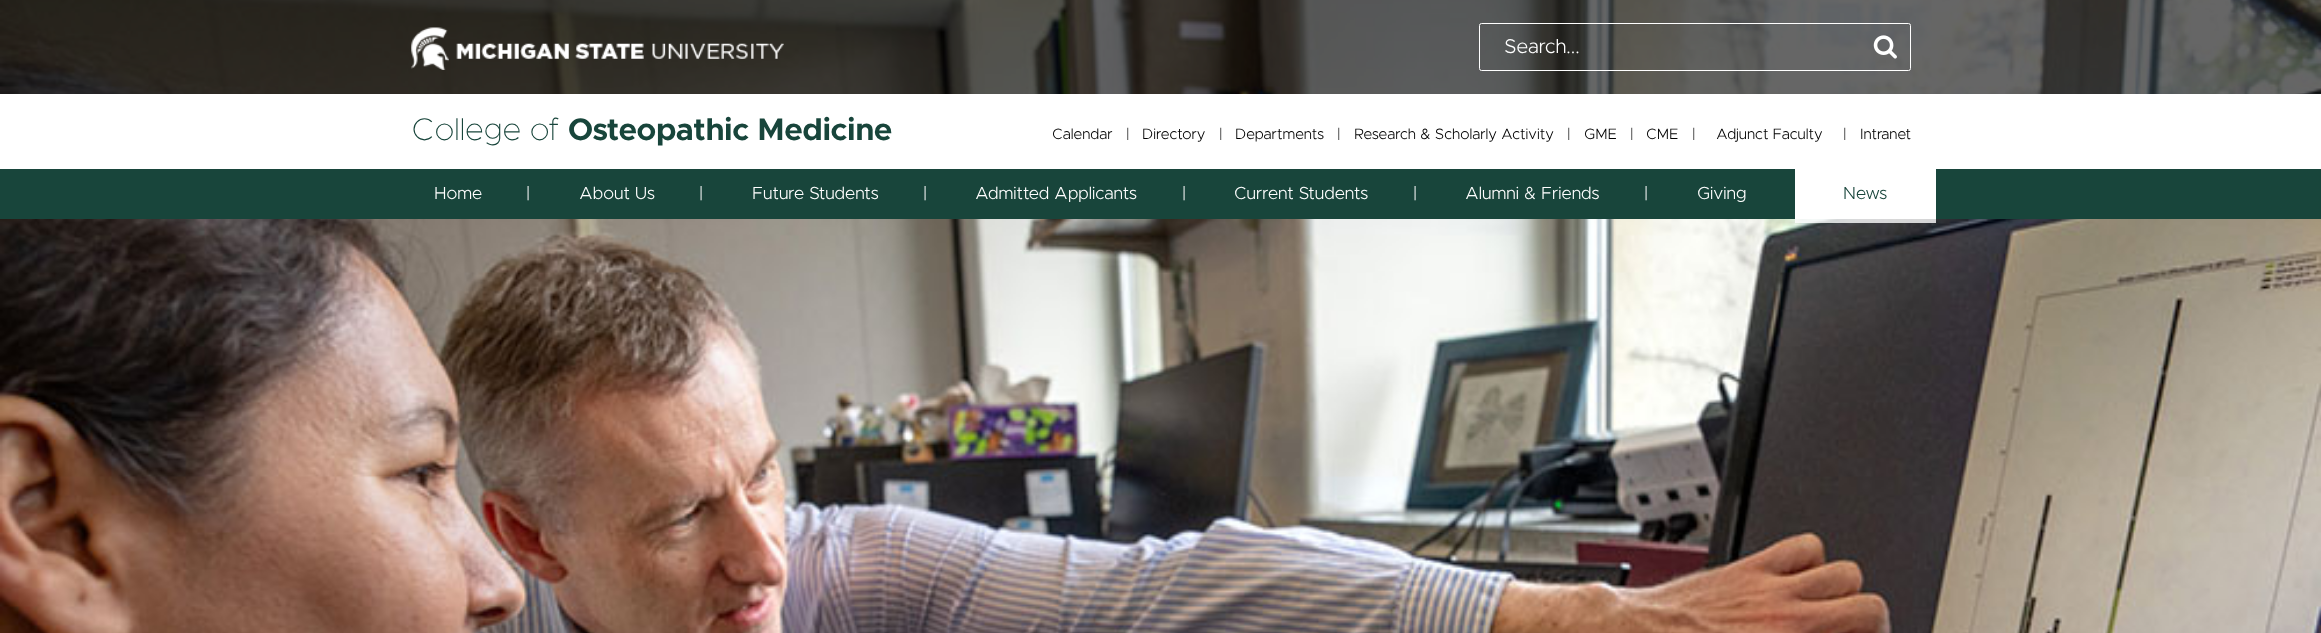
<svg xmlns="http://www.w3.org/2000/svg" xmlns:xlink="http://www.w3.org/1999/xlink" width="2321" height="633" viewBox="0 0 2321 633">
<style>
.cls-1{font:300 20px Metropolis;fill:#ffffff}
.cls-2{font:100 31.25px Metropolis;fill:#18453b}
.cls-3{font:bold 31.25px Metropolis;fill:#18453b}
.cls-4{font:300 15px Metropolis;fill:#000000}
.cls-5{font:300 15px Metropolis;fill:#202020}
.cls-6{font:300 17.5px Metropolis;fill:#ffffff}
.cls-7{font:300 17.5px Metropolis;fill:#18453b}
</style>
<rect width="100%" height="100%" fill="#ffffff"/>
<image xlink:href="image0.png" x="0" y="0" width="2321" height="633"/>
<rect fill="#000000" fill-opacity="0.6" x="0" y="0" width="2321" height="94"/>
<image xlink:href="image1.png" x="411" y="27" width="373" height="43"/>
<rect fill="none" stroke="#ffffff" x="1479.5" y="23.5" width="431" height="47" rx="2"/>
<image xlink:href="image2.png" x="1873" y="35" width="24" height="24"/>
<rect fill="#ffffff" x="0" y="94" width="2321" height="75"/>
<rect fill="#18453b" x="0" y="169" width="2321" height="50"/>
<rect fill="#ffffff" x="1795" y="169" width="141" height="50"/>
<rect fill="#ffffff" fill-opacity="0.8" x="1795" y="219" width="141" height="4"/>
<text class="cls-1" x="1504" y="53">Search...</text>
<text class="cls-2" x="411" y="140">College of</text>
<text class="cls-3" x="568" y="140">Osteopathic Medicine</text>
<text class="cls-4" x="1052" y="139">Calendar</text>
<text class="cls-5" x="1126" y="139">|</text>
<text class="cls-4" x="1142" y="139">Directory</text>
<text class="cls-5" x="1219" y="139">|</text>
<text class="cls-4" x="1235" y="139">Departments</text>
<text class="cls-5" x="1337" y="139">|</text>
<text class="cls-4" x="1354" y="139">Research &amp; Scholarly Activity</text>
<text class="cls-5" x="1567" y="139">|</text>
<text class="cls-4" x="1584" y="139">GME</text>
<text class="cls-5" x="1630" y="139">|</text>
<text class="cls-4" x="1646" y="139">CME</text>
<text class="cls-5" x="1692" y="139">|</text>
<text class="cls-4" x="1716" y="139">Adjunct Faculty</text>
<text class="cls-5" x="1843" y="139">|</text>
<text class="cls-4" x="1860" y="139">Intranet</text>
<text class="cls-6" x="434" y="199">Home</text>
<text class="cls-6" x="526" y="199">|</text>
<text class="cls-6" x="579" y="199">About Us</text>
<text class="cls-6" x="699" y="199">|</text>
<text class="cls-6" x="752" y="199">Future Students</text>
<text class="cls-6" x="923" y="199">|</text>
<text class="cls-6" x="975" y="199">Admitted Applicants</text>
<text class="cls-6" x="1182" y="199">|</text>
<text class="cls-6" x="1234" y="199">Current Students</text>
<text class="cls-6" x="1413" y="199">|</text>
<text class="cls-6" x="1465" y="199">Alumni &amp; Friends</text>
<text class="cls-6" x="1644" y="199">|</text>
<text class="cls-6" x="1697" y="199">Giving</text>
<text class="cls-7" x="1843" y="199">News</text>
</svg>
